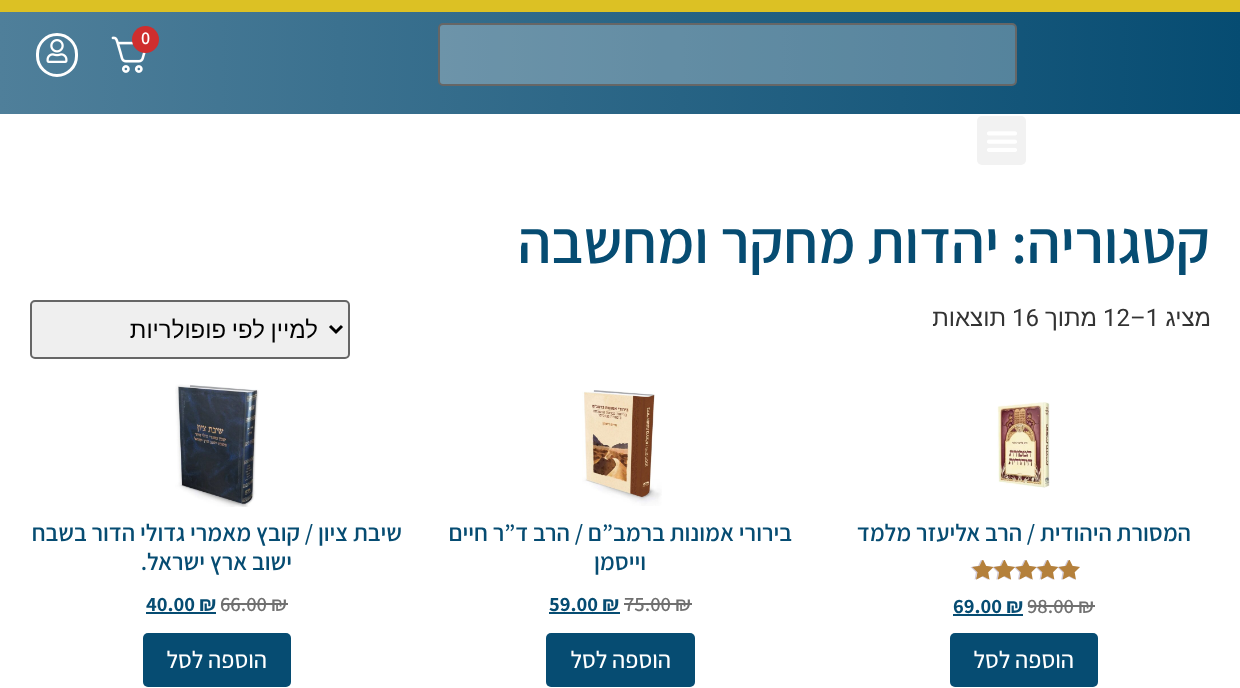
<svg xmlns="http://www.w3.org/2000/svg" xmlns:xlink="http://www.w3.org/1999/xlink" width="1240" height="688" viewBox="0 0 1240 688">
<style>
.cls-1{font:600 18px Assistant;fill:#ffffff}
.cls-2{font:600 60px Assistant;direction:rtl;fill:#064c72}
.cls-3{font:24px Liberation Sans;direction:rtl;fill:#333333}
.cls-4{font:24px Roboto;fill:#333333}
.cls-5{font:24px Liberation Sans;direction:rtl;fill:#000000}
.cls-6{font:600 24px Assistant;direction:rtl;fill:#064c72}
.cls-7{font:600 20.5px Assistant;fill:#707070}
.cls-8{font:bold 20.5px Assistant;fill:#064c72}
.cls-9{font:500 24px Assistant;direction:rtl;fill:#ffffff}
</style>
<defs>
<linearGradient id="g1" gradientUnits="userSpaceOnUse" x1="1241" y1="63" x2="0" y2="63"><stop offset="0" stop-color="#064c72"/><stop offset="1" stop-color="#4f7f9a"/></linearGradient>
<clipPath id="clip1"><rect x="80" y="314" width="238" height="31"/></clipPath>
</defs>
<rect width="100%" height="100%" fill="#ffffff"/>
<rect fill="#dcc124" x="0" y="0" width="1240" height="12"/>
<rect fill="url(#g1)" x="0" y="12" width="1240" height="102"/>
<rect fill="#efefef" fill-opacity="0.3" stroke="#666666" stroke-width="2" x="439" y="24" width="577" height="61" rx="4"/>
<image xlink:href="image0.png" x="111" y="36" width="35" height="37"/>
<circle fill="#cf2e2e" cx="145.5" cy="39.5" r="13.5"/>
<rect fill="none" stroke="#ffffff" stroke-width="3" x="37.5" y="34.5" width="39" height="41" rx="19.5"/>
<image xlink:href="image1.png" x="46" y="39" width="22" height="24"/>
<rect fill="#f2f2f2" x="977" y="116" width="49" height="49" rx="5"/>
<image xlink:href="image2.png" x="987" y="131" width="30" height="21"/>
<rect fill="#efefef" stroke="#666666" stroke-width="2" x="31" y="301" width="318" height="57" rx="4"/>
<path fill="none" stroke="#000000" stroke-width="3" d="M330 326L336 332L342 326"/>
<image xlink:href="image3.png" x="997" y="402" width="53" height="86"/>
<image xlink:href="image4.png" x="970" y="560" width="109" height="20"/>
<image xlink:href="image5.png" x="972" y="560" width="108" height="20"/>
<rect fill="#707070" x="1028" y="605" width="67" height="2"/>
<rect fill="#064c72" x="953" y="614" width="70" height="2"/>
<rect fill="#064c72" x="950" y="633" width="148" height="54" rx="5"/>
<image xlink:href="image6.png" x="582" y="390" width="80" height="116"/>
<rect fill="#707070" x="624" y="603" width="68" height="2"/>
<rect fill="#064c72" x="549" y="612" width="71" height="2"/>
<rect fill="#064c72" x="546" y="633" width="149" height="54" rx="5"/>
<image xlink:href="image7.png" x="175" y="384" width="84" height="123"/>
<rect fill="#707070" x="221" y="603" width="67" height="2"/>
<rect fill="#064c72" x="146" y="612" width="70" height="2"/>
<rect fill="#064c72" x="143" y="633" width="148" height="54" rx="5"/>
<text class="cls-1" x="141" y="44">0</text>
<text class="cls-2" x="1210" y="263">קטגוריה: יהדות מחקר ומחשבה</text>
<text class="cls-3" x="1211" y="326">מציג</text>
<text class="cls-4" x="1103" y="326">12–1</text>
<text class="cls-3" x="1097" y="326">מתוך</text>
<text class="cls-4" x="1012" y="326">16</text>
<text class="cls-3" x="1006" y="326">תוצאות</text>
<g clip-path="url(#clip1)">
<text class="cls-5" x="318" y="338" word-spacing="-1">למיין לפי פופולריות</text>
</g>
<text class="cls-6" x="1191" y="541">המסורת היהודית / הרב אליעזר מלמד</text>
<text class="cls-7" x="1027" y="613">98.00 ₪</text>
<text class="cls-8" x="953" y="613">69.00 ₪</text>
<text class="cls-9" x="1074" y="668">הוספה לסל</text>
<text class="cls-6" x="792" y="541">בירורי אמונות ברמב”ם / הרב ד”ר חיים</text>
<text class="cls-6" x="646" y="570">וייסמן</text>
<text class="cls-7" x="624" y="611">75.00 ₪</text>
<text class="cls-8" x="549" y="611">59.00 ₪</text>
<text class="cls-9" x="671" y="668">הוספה לסל</text>
<text class="cls-6" x="402" y="541">שיבת ציון / קובץ מאמרי גדולי הדור בשבח</text>
<text class="cls-6" x="292" y="570">ישוב ארץ ישראל.</text>
<text class="cls-7" x="220" y="611">66.00 ₪</text>
<text class="cls-8" x="146" y="611">40.00 ₪</text>
<text class="cls-9" x="267" y="668">הוספה לסל</text>
</svg>
